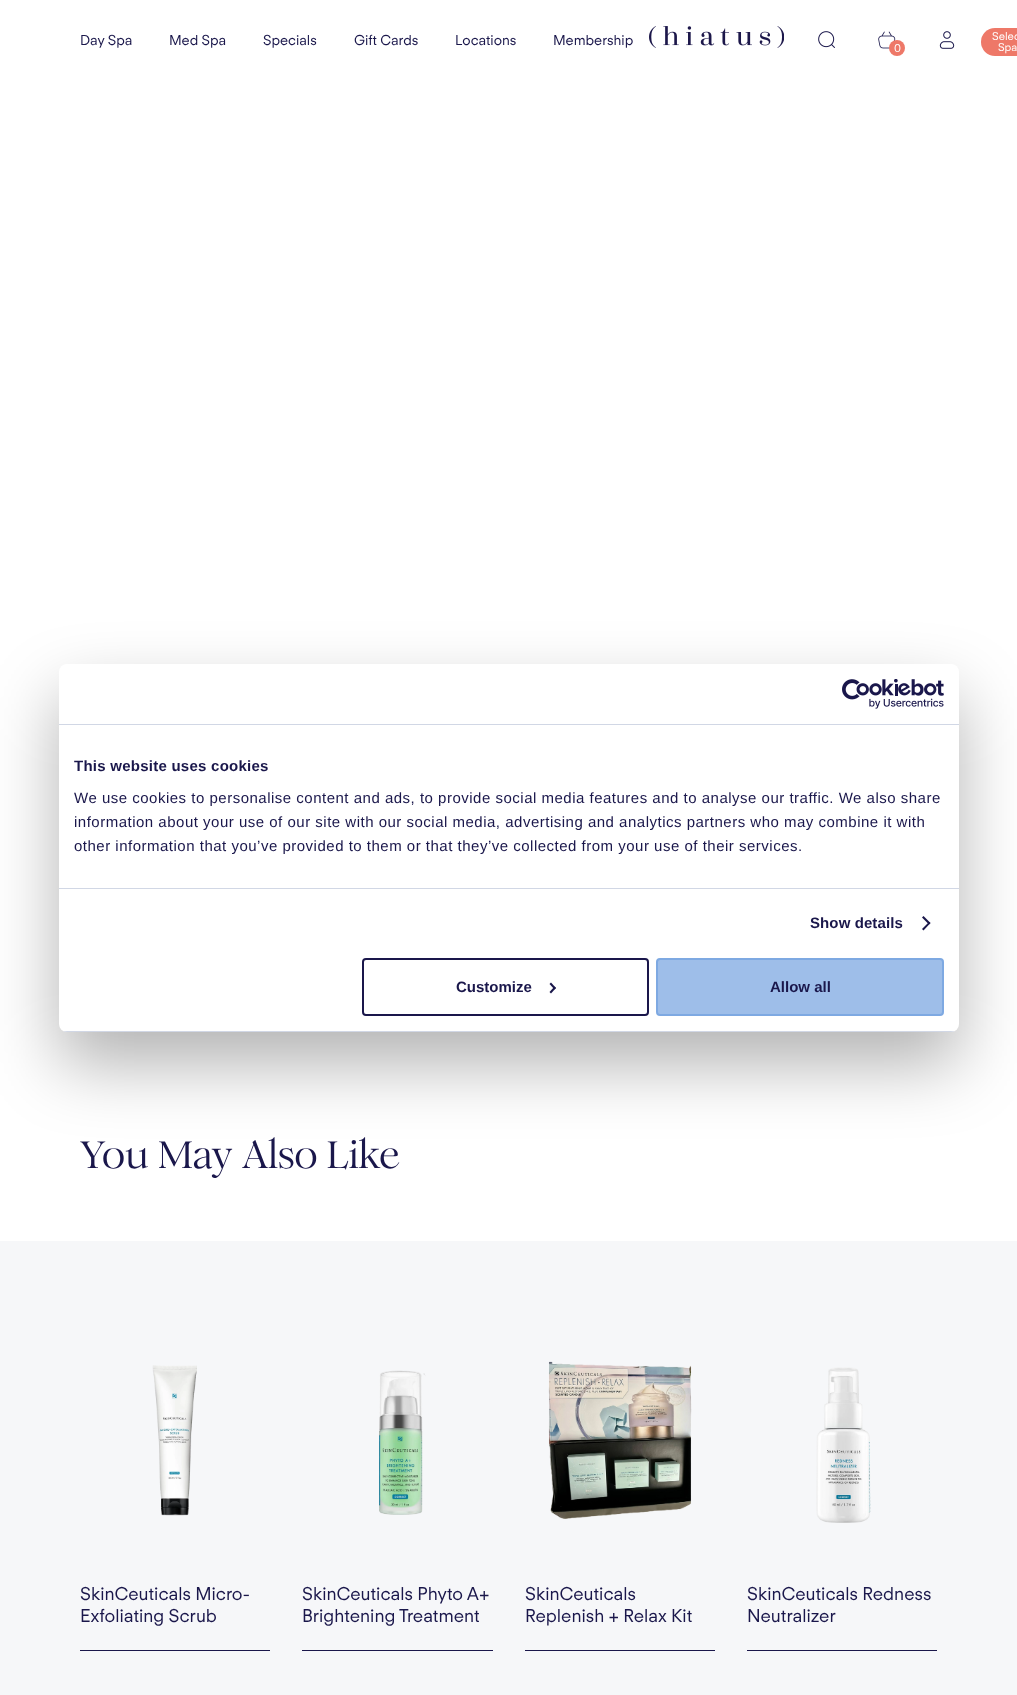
<svg xmlns="http://www.w3.org/2000/svg" xmlns:xlink="http://www.w3.org/1999/xlink" width="1017" height="1695" viewBox="0 0 1017 1695">
<style>
.cls-1{font:14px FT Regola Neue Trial;fill:#1a174b}
.cls-2{font:11px FT Regola Neue Trial;fill:#ffffff}
.cls-3{font:500 38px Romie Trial;fill:#1a174b}
.cls-4{font:18px FT Regola Neue Trial;fill:#1a174b}
.cls-5{font:bold 15px Liberation Sans;letter-spacing:0.25px;fill:#1a174b}
.cls-6{font:15px Liberation Sans;letter-spacing:0.5px;fill:#1a174b}
.cls-7{font:bold 15px Liberation Sans;letter-spacing:0.1px;fill:#1a174b}
.cls-8{font:bold 15px Liberation Sans;fill:#1a174b}
</style>
<defs>
<clipPath id="clip1"><rect x="59" y="664" width="900" height="368" rx="8"/></clipPath>
</defs>
<rect width="100%" height="100%" fill="#ffffff"/>
<image xlink:href="image0.png" x="649" y="26" width="135" height="22"/>
<image xlink:href="image1.png" x="818" y="31" width="17" height="17"/>
<image xlink:href="image2.png" x="878" y="31" width="18" height="18"/>
<circle fill="#ee7868" cx="897" cy="48" r="8"/>
<image xlink:href="image3.png" x="939" y="31" width="16" height="18"/>
<rect fill="#ee7868" x="981" y="28" width="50" height="28" rx="14"/>
<rect fill="#f6f7f9" x="0" y="1241" width="1017" height="454"/>
<rect fill="#1a174b" x="80" y="1650" width="190" height="1"/>
<image xlink:href="image4.png" x="152" y="1365" width="45" height="151"/>
<rect fill="#1a174b" x="302" y="1650" width="191" height="1"/>
<image xlink:href="image5.png" x="379" y="1370" width="47" height="145"/>
<rect fill="#1a174b" x="525" y="1650" width="190" height="1"/>
<image xlink:href="image6.png" x="548" y="1361" width="144" height="158"/>
<rect fill="#1a174b" x="747" y="1650" width="190" height="1"/>
<image xlink:href="image7.png" x="816" y="1367" width="55" height="156"/>
<rect fill="#000000" fill-opacity="0.3" filter="blur(34px)" x="59" y="696" width="900" height="368" rx="8"/>
<rect fill="#ffffff" x="59" y="664" width="900" height="368" rx="8"/>
<rect fill="#d1d7e5" x="59" y="724" width="900" height="1"/>
<image xlink:href="image8.png" x="842" y="679" width="102" height="30"/>
<rect fill="#d1d7e5" x="59" y="888" width="900" height="1"/>
<path fill="#1a174b" d="M923.5 916L930.5 923L929 924.5L922 917.5Z"/>
<path fill="#1a174b" d="M929 922L930.5 923L923.5 930.5L922 929Z"/>
<g clip-path="url(#clip1)">
<rect fill="#d1d7e5" x="59" y="1031" width="900" height="1"/>
</g>
<rect fill="none" stroke="#1a174b" stroke-width="2" x="363" y="959" width="285" height="56" rx="3"/>
<path fill="#1a174b" d="M551 982.5L556 988L554.5 989.5L549.5 984Z"/>
<path fill="#1a174b" d="M554.5 986.5L556 988L551 993.5L549.5 992Z"/>
<rect fill="#9ebee9" stroke="#7ea9e2" stroke-width="2" x="657" y="959" width="286" height="56" rx="3"/>
<text class="cls-1" x="80" y="45">Day Spa</text>
<text class="cls-1" x="169" y="45">Med Spa</text>
<text class="cls-1" x="263" y="45">Specials</text>
<text class="cls-1" x="354" y="45">Gift Cards</text>
<text class="cls-1" x="455" y="45">Locations</text>
<text class="cls-1" x="553" y="45">Membership</text>
<text class="cls-2" x="894" y="52">0</text>
<text class="cls-2" x="992" y="40">Selec</text>
<text class="cls-2" x="998" y="51">Spa</text>
<text class="cls-3" x="80" y="1168">You May Also Like</text>
<text class="cls-4"><tspan x="80" y="1600">SkinCeuticals Micro-</tspan><tspan x="80" y="1622">Exfoliating Scrub</tspan></text>
<text class="cls-4"><tspan x="302" y="1600">SkinCeuticals Phyto A+</tspan><tspan x="302" y="1622">Brightening Treatment</tspan></text>
<text class="cls-4"><tspan x="525" y="1600">SkinCeuticals</tspan><tspan x="525" y="1622">Replenish + Relax Kit</tspan></text>
<text class="cls-4"><tspan x="747" y="1600">SkinCeuticals Redness</tspan><tspan x="747" y="1622">Neutralizer</tspan></text>
<text class="cls-5" x="74" y="771">This website uses cookies</text>
<text class="cls-6"><tspan x="74" y="803">We use cookies to personalise content and ads, to provide social media features and to analyse our traffic. We also share</tspan><tspan x="74" y="827">information about your use of our site with our social media, advertising and analytics partners who may combine it with</tspan><tspan x="74" y="851">other information that you’ve provided to them or that they’ve collected from your use of their services.</tspan></text>
<text class="cls-7" x="810" y="928">Show details</text>
<text class="cls-8" x="456" y="992">Customize</text>
<text class="cls-8" x="770" y="992">Allow all</text>
</svg>
